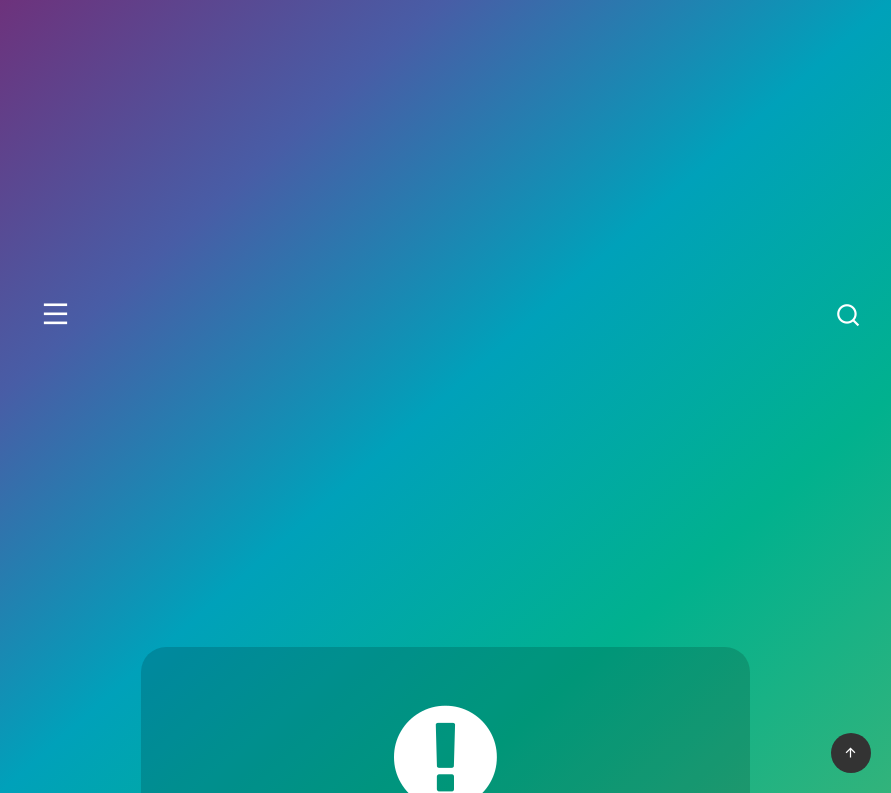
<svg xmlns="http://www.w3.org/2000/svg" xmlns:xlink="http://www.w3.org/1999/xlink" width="891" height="793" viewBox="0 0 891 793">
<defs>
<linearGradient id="g1" gradientUnits="userSpaceOnUse" x1="52" y1="-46" x2="839" y2="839"><stop offset="0" stop-color="#6d327c"/><stop offset="0.25" stop-color="#485da6"/><stop offset="0.5" stop-color="#00a1ba"/><stop offset="0.75" stop-color="#01b18e"/><stop offset="1" stop-color="#32b37b"/></linearGradient>
</defs>
<rect width="100%" height="100%" fill="#ffffff"/>
<rect fill="url(#g1)" x="0" y="0" width="891" height="793"/>
<image xlink:href="image0.png" x="43" y="303" width="25" height="22"/>
<image xlink:href="image1.png" x="837" y="304" width="23" height="23"/>
<rect fill="#000000" fill-opacity="0.15" x="141" y="647" width="609" height="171" rx="25"/>
<image xlink:href="image2.png" x="394" y="705" width="103" height="88"/>
<circle fill="#333333" cx="851" cy="753" r="20"/>
<image xlink:href="image3.png" x="845" y="747" width="11" height="11"/>
</svg>
